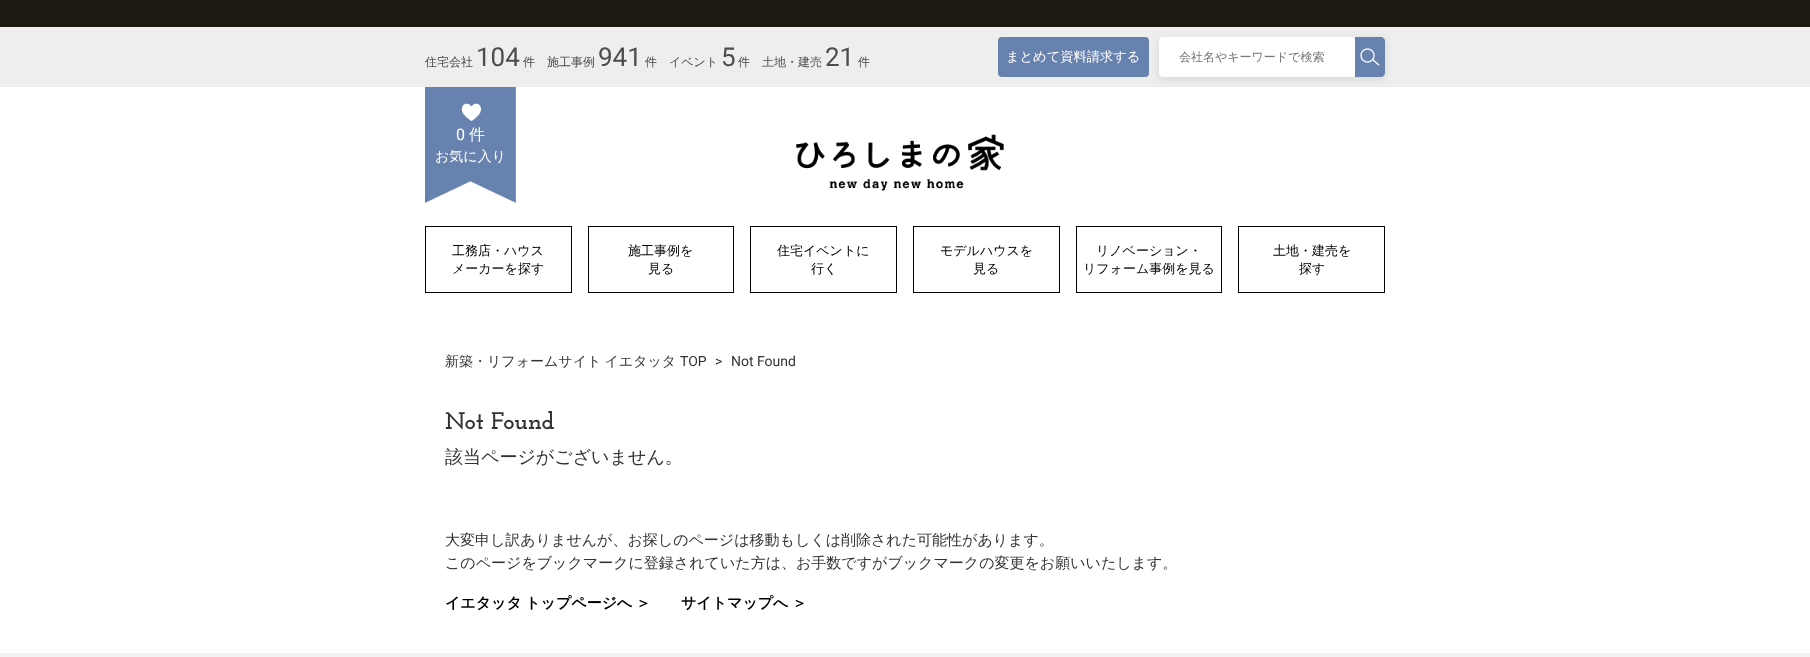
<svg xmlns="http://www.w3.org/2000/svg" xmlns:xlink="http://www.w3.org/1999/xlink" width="1810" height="657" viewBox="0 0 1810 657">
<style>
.cls-1{font:500 12px WenQuanYi Zen Hei;fill:#4d4d4d}
.cls-2{font:26px Roboto;fill:#4d4d4d}
.cls-3{font:500 13.25px WenQuanYi Zen Hei;fill:#ffffff}
.cls-4{font:500 12px WenQuanYi Zen Hei;fill:#757575}
.cls-5{font:16px Roboto;fill:#ffffff}
.cls-6{font:500 16px WenQuanYi Zen Hei;fill:#ffffff}
.cls-7{font:500 14px WenQuanYi Zen Hei;fill:#ffffff}
.cls-8{font:500 13px WenQuanYi Zen Hei;fill:#000000}
.cls-9{font:500 14px WenQuanYi Zen Hei;fill:#333333}
.cls-10{font:14px Roboto;fill:#333333}
.cls-11{font:bold 24px Josefin Slab;fill:#333333}
.cls-12{font:500 18px WenQuanYi Zen Hei;fill:#333333}
.cls-13{font:500 15px WenQuanYi Zen Hei;fill:#333333}
.cls-14{font:bold 15px WenQuanYi Zen Hei;fill:#000000}
</style>
<rect width="100%" height="100%" fill="#ffffff"/>
<rect fill="#1c1a10" x="0" y="0" width="1810" height="27"/>
<rect fill="#eeeeee" x="0" y="27" width="1810" height="60"/>
<rect fill="#6782ae" x="998" y="37" width="151" height="40" rx="4"/>
<rect fill="#000000" fill-opacity="0.1" filter="blur(4px)" x="1159" y="39" width="226" height="40" rx="4"/>
<path fill="#ffffff" d="M1163 37H1355V77H1163C1161 77 1159 75 1159 73V41C1159 39 1161 37 1163 37Z"/>
<path fill="#6782ae" d="M1355 37H1381C1383 37 1385 39 1385 41V73C1385 75 1383 77 1381 77H1355Z"/>
<image xlink:href="image0.png" x="1360" y="48" width="20" height="18"/>
<image xlink:href="image1.png" x="425" y="87" width="91" height="116"/>
<image xlink:href="image2.png" x="461" y="103" width="20" height="18"/>
<image xlink:href="image3.png" x="796" y="134" width="208" height="57"/>
<rect fill="none" stroke="#000000" x="425.5" y="226.5" width="146" height="66"/>
<rect fill="none" stroke="#000000" x="588.5" y="226.5" width="145" height="66"/>
<rect fill="none" stroke="#000000" x="750.5" y="226.5" width="146" height="66"/>
<rect fill="none" stroke="#000000" x="913.5" y="226.5" width="146" height="66"/>
<rect fill="none" stroke="#000000" x="1076.5" y="226.5" width="145" height="66"/>
<rect fill="none" stroke="#000000" x="1238.5" y="226.5" width="146" height="66"/>
<rect fill="#f2f2f2" x="0" y="653" width="1810" height="4"/>
<text class="cls-1" x="425" y="66">住宅会社</text>
<text class="cls-2" x="476" y="66">104</text>
<text class="cls-1" x="523" y="66">件</text>
<text class="cls-1" x="547" y="66">施工事例</text>
<text class="cls-2" x="598" y="66">941</text>
<text class="cls-1" x="645" y="66">件</text>
<text class="cls-1" x="669" y="66">イベント</text>
<text class="cls-2" x="721" y="66">5</text>
<text class="cls-1" x="738" y="66">件</text>
<text class="cls-1" x="762" y="66">土地・建売</text>
<text class="cls-2" x="825" y="66">21</text>
<text class="cls-1" x="858" y="66">件</text>
<text class="cls-3" x="1006" y="61">まとめて資料請求する</text>
<text class="cls-4" x="1179" y="61">会社名やキーワードで検索</text>
<text class="cls-5" x="456" y="140">0</text>
<text class="cls-6" x="469" y="140">件</text>
<text class="cls-7" x="435" y="161">お気に入り</text>
<text class="cls-8"><tspan x="452" y="255">工務店・ハウス</tspan><tspan x="452" y="273">メーカーを探す</tspan></text>
<text class="cls-8" x="628" y="255">施工事例を</text>
<text class="cls-8" x="648" y="273">見る</text>
<text class="cls-8" x="777" y="255">住宅イベントに</text>
<text class="cls-8" x="811" y="273">行く</text>
<text class="cls-8" x="940" y="255">モデルハウスを</text>
<text class="cls-8" x="973" y="273">見る</text>
<text class="cls-8" x="1096" y="255">リノベーション・</text>
<text class="cls-8" x="1083" y="273">リフォーム事例を見る</text>
<text class="cls-8" x="1273" y="255">土地・建売を</text>
<text class="cls-8" x="1299" y="273">探す</text>
<text class="cls-9" x="445" y="366" word-spacing="-1">新築・リフォームサイト イエタッタ</text>
<text class="cls-10" x="680" y="366">TOP</text>
<text class="cls-10" x="715" y="366">&gt;</text>
<text class="cls-10" x="731" y="366">Not Found</text>
<text class="cls-11" x="445" y="429">Not Found</text>
<text class="cls-12" x="445" y="463">該当ページがございません。</text>
<text class="cls-13"><tspan x="445" y="545">大変申し訳ありませんが、お探しのページは移動もしくは削除された可能性があります。</tspan><tspan x="445" y="568">このページをブックマークに登録されていた方は、お手数ですがブックマークの変更をお願いいたします。</tspan></text>
<text class="cls-14" x="445" y="608" word-spacing="-1">イエタッタ トップページへ ＞</text>
<text class="cls-14" x="681" y="608" word-spacing="-1">サイトマップへ ＞</text>
</svg>
